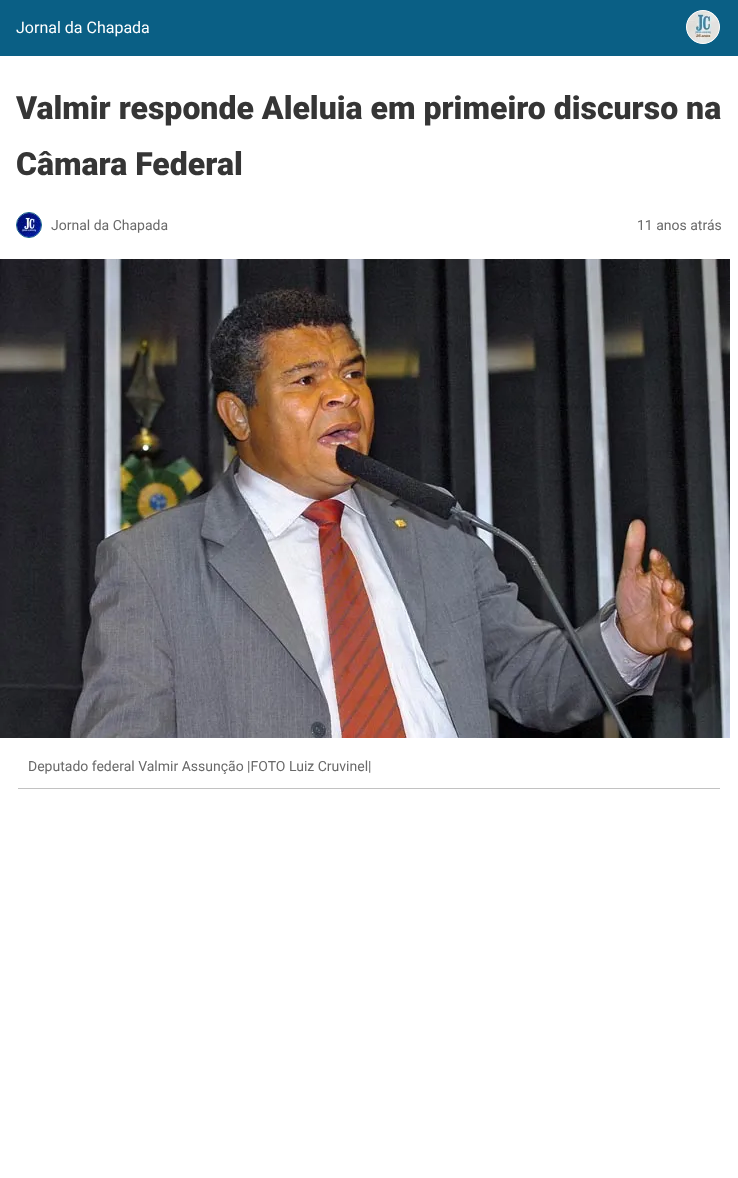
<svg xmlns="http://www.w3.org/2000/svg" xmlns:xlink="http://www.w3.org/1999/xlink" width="738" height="1178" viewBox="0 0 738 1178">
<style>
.cls-1{font:16px Roboto;fill:#ffffff}
.cls-2{font:900 32px Roboto;fill:#353535}
.cls-3{font:14px Roboto;fill:#696969}
</style>
<rect width="100%" height="100%" fill="#ffffff"/>
<rect fill="#0a5f85" x="0" y="0" width="738" height="56"/>
<circle fill="#ffffff" stroke="#ffffff" cx="703" cy="27" r="16.5"/>
<image xlink:href="image0.png" x="687" y="11" width="32" height="32"/>
<circle fill="none" stroke="#0a5f85" cx="29" cy="225" r="12.5"/>
<image xlink:href="image1.png" x="17" y="213" width="24" height="24"/>
<image xlink:href="image2.png" x="0" y="259" width="730" height="479"/>
<rect fill="#c2c2c2" x="18" y="788" width="702" height="1"/>
<text class="cls-1" x="16" y="33">Jornal da Chapada</text>
<text class="cls-2"><tspan x="16" y="119">Valmir responde Aleluia em primeiro discurso na</tspan><tspan x="16" y="175">Câmara Federal</tspan></text>
<text class="cls-3" x="51" y="230">Jornal da Chapada</text>
<text class="cls-3" x="637" y="230">11 anos atrás</text>
<text class="cls-3" x="28" y="771">Deputado federal Valmir Assunção |FOTO Luiz Cruvinel|</text>
</svg>
